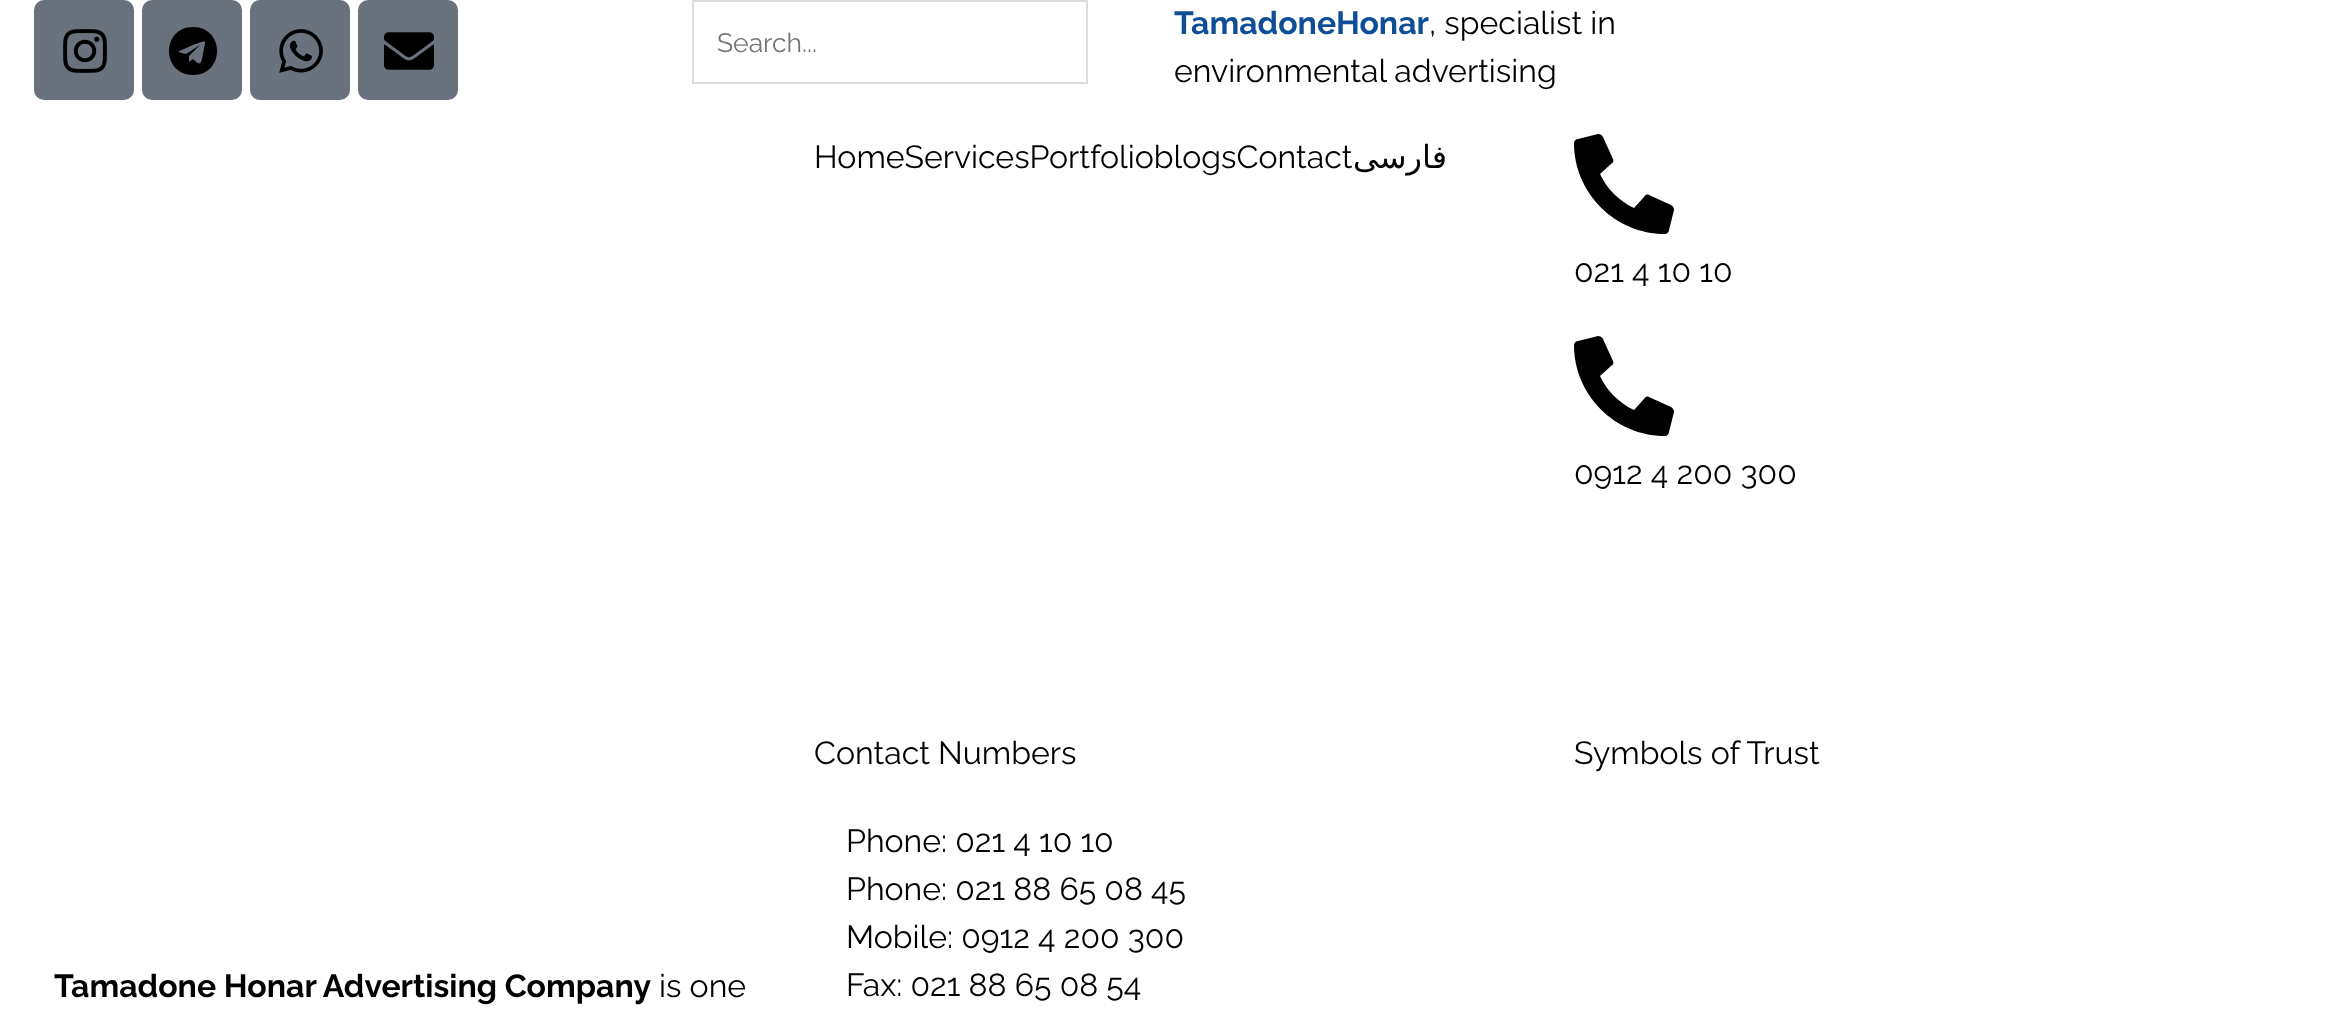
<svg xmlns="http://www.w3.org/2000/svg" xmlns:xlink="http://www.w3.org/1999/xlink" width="2347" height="1011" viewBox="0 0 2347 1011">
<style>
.cls-1{font:26.5px Raleway;fill:#757575}
.cls-2{font:bold 32px Raleway;fill:#0d4e97}
.cls-3{font:32px Raleway;fill:#000000}
.cls-4{font:32px DejaVu Sans;direction:rtl;fill:#000000}
.cls-5{font:bold 32px Raleway;fill:#000000}
</style>
<rect width="100%" height="100%" fill="#ffffff"/>
<rect fill="#69727d" x="34" y="0" width="100" height="100" rx="10"/>
<image xlink:href="image0.png" x="63" y="29" width="44" height="44"/>
<rect fill="#69727d" x="142" y="0" width="100" height="100" rx="10"/>
<path fill="#000000" d="M193 27C161 27 161 75 193 75C225 75 225 27 193 27ZM205 43L202 59C200 67 198 63 193 59L189 62V56L200 45L186 54C180 52 174 53 184 49L195 44C197 44 206 39 205 43Z"/>
<rect fill="#69727d" x="250" y="0" width="100" height="100" rx="10"/>
<image xlink:href="image1.png" x="279" y="29" width="44" height="44"/>
<rect fill="#69727d" x="358" y="0" width="100" height="100" rx="10"/>
<image xlink:href="image2.png" x="384" y="32" width="50" height="38"/>
<rect fill="none" stroke="#dcdcdc" stroke-width="2" x="693" y="1" width="394" height="82"/>
<path fill="#000000" d="M1671 205L1649 195C1647 194 1645 195 1644 197L1634 208C1619 201 1607 189 1600 174L1611 164C1613 163 1614 161 1613 159L1603 137C1602 135 1600 134 1598 134L1578 139C1576 139 1574 141 1574 143C1574 193 1615 234 1665 234C1667 234 1669 232 1669 230L1674 210C1674 208 1673 206 1671 205Z"/>
<path fill="#000000" d="M1671 407L1649 397C1647 396 1645 397 1644 399L1634 410C1619 403 1607 391 1600 376L1611 366C1613 365 1614 363 1613 361L1603 339C1602 337 1600 336 1598 336L1578 341C1576 341 1574 343 1574 345C1574 395 1615 436 1665 436C1667 436 1669 434 1669 432L1674 412C1674 410 1673 408 1671 407Z"/>
<text class="cls-1" x="717" y="52">Search...</text>
<text class="cls-2" x="1174" y="34">TamadoneHonar</text>
<text class="cls-3" x="1429" y="34">, specialist in</text>
<text class="cls-3" x="1174" y="82">environmental advertising</text>
<text class="cls-3" x="814" y="168">HomeServicesPortfolioblogsContact</text>
<text class="cls-4" x="1447" y="168">فارسی</text>
<text class="cls-3" x="1574" y="282">021 4 10 10</text>
<text class="cls-3" x="1574" y="484">0912 4 200 300</text>
<text class="cls-3" x="814" y="764">Contact Numbers</text>
<text class="cls-3"><tspan x="846" y="852">Phone: 021 4 10 10</tspan><tspan x="846" y="900">Phone: 021 88 65 08 45</tspan><tspan x="846" y="948">Mobile: 0912 4 200 300</tspan><tspan x="846" y="996">Fax: 021 88 65 08 54</tspan></text>
<text class="cls-3" x="1574" y="764">Symbols of Trust</text>
<text class="cls-5" x="54" y="997">Tamadone Honar Advertising Company</text>
<text class="cls-3" x="659" y="997">is one</text>
</svg>
